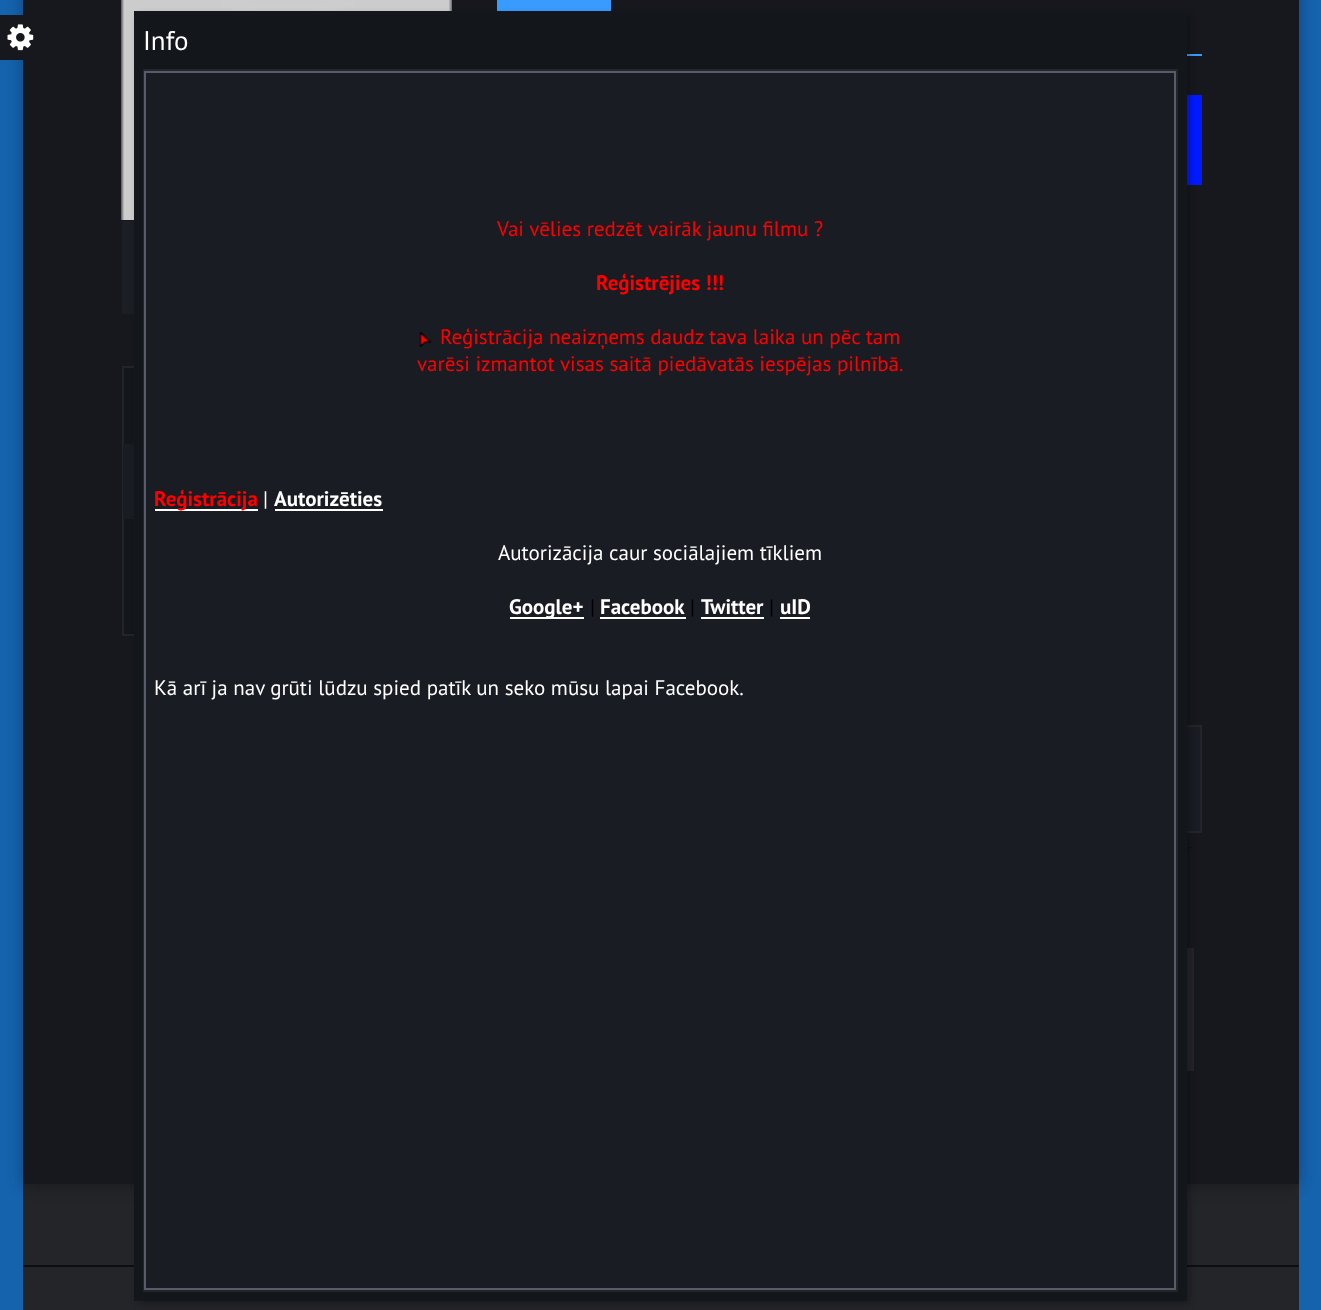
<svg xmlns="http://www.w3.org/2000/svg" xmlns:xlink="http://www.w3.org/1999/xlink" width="1321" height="1310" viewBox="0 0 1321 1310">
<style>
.cls-1{font:27px PT Sans;fill:#ffffff}
.cls-2{font:21px PT Sans;fill:#ff0000}
.cls-3{font:bold 21px PT Sans;fill:#ff0000}
.cls-4{font:21px PT Sans;fill:#ffffff}
.cls-5{font:bold 21px PT Sans;fill:#ffffff}
.cls-6{font:21px PT Sans;fill:#000000}
</style>
<rect width="100%" height="100%" fill="#242529"/>
<rect fill="none" stroke="#1562ad" stroke-width="23" x="11.5" y="-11.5" width="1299" height="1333"/>
<rect fill="#000000" fill-opacity="0.3" filter="blur(7.5px)" x="23" y="-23" width="1276" height="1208"/>
<rect fill="#16181d" x="23" y="0" width="1276" height="1184"/>
<image xlink:href="image0.png" x="121" y="0" width="331" height="220"/>
<rect fill="#1c1e25" x="122" y="221" width="12" height="93"/>
<rect fill="#13161a" x="124" y="368" width="10" height="266"/>
<rect fill="none" stroke="#242529" stroke-width="2" x="123" y="367" width="328" height="268"/>
<rect fill="#191c22" x="123" y="444" width="11" height="75"/>
<rect fill="#399bfe" x="1187" y="54" width="15" height="2"/>
<rect fill="#399bfe" x="497" y="0" width="114" height="11"/>
<rect fill="#0019ff" x="1187" y="95" width="15" height="90"/>
<rect fill="#191c22" x="1187" y="727" width="13" height="104"/>
<rect fill="none" stroke="#242529" stroke-width="2" x="498" y="726" width="703" height="106"/>
<image xlink:href="image1.png" x="1187" y="847" width="6" height="2"/>
<rect fill="#242529" x="1187" y="948" width="7" height="123"/>
<path fill="#16181d" d="M0 15H40C43 15 45 17 45 20V55C45 58 43 60 40 60H0Z"/>
<image xlink:href="image2.png" x="7" y="24" width="27" height="27"/>
<rect fill="#0d0e11" x="23" y="1265" width="1276" height="2"/>
<rect fill="#000000" fill-opacity="0.25" filter="blur(3px)" x="137" y="14" width="1053" height="1290" rx="4"/>
<rect fill="#13161a" x="134" y="11" width="1053" height="1290"/>
<rect fill="#191c22" x="146" y="73" width="1028" height="1215"/>
<rect fill="none" stroke="#242529" stroke-width="2" x="144" y="70" width="1033" height="1221"/>
<rect fill="none" stroke="#575b6b" stroke-width="2" x="145" y="72" width="1030" height="1217"/>
<image xlink:href="image3.png" x="419" y="332" width="13" height="15"/>
<rect fill="#ffffff" x="155" y="509" width="103" height="2"/>
<rect fill="#ffffff" x="275" y="509" width="108" height="2"/>
<rect fill="#ffffff" x="510" y="617" width="74" height="2"/>
<rect fill="#ffffff" x="600" y="617" width="86" height="2"/>
<rect fill="#ffffff" x="701" y="617" width="63" height="2"/>
<rect fill="#ffffff" x="780" y="617" width="30" height="2"/>
<text class="cls-1" x="143" y="50">Info</text>
<text class="cls-2" x="497" y="236">Vai vēlies redzēt vairāk jaunu filmu ?</text>
<text class="cls-3" x="596" y="290">Reģistrējies !!!</text>
<text class="cls-2" x="440" y="344">Reģistrācija neaizņems daudz tava laika un pēc tam</text>
<text class="cls-2" x="417" y="371">varēsi izmantot visas saitā piedāvatās iespējas pilnībā.</text>
<text class="cls-3" x="154" y="506">Reģistrācija</text>
<text class="cls-4" x="263" y="506">|</text>
<text class="cls-5" x="274" y="506">Autorizēties</text>
<text class="cls-4" x="498" y="560">Autorizācija caur sociālajiem tīkliem</text>
<text class="cls-5" x="509" y="614">Google+</text>
<text class="cls-6" x="590" y="614">|</text>
<text class="cls-5" x="600" y="614">Facebook</text>
<text class="cls-6" x="690" y="614">|</text>
<text class="cls-5" x="701" y="614">Twitter</text>
<text class="cls-6" x="769" y="614">|</text>
<text class="cls-5" x="780" y="614">uID</text>
<text class="cls-4" x="154" y="695">Kā arī ja nav grūti lūdzu spied patīk un seko mūsu lapai Facebook.</text>
</svg>
